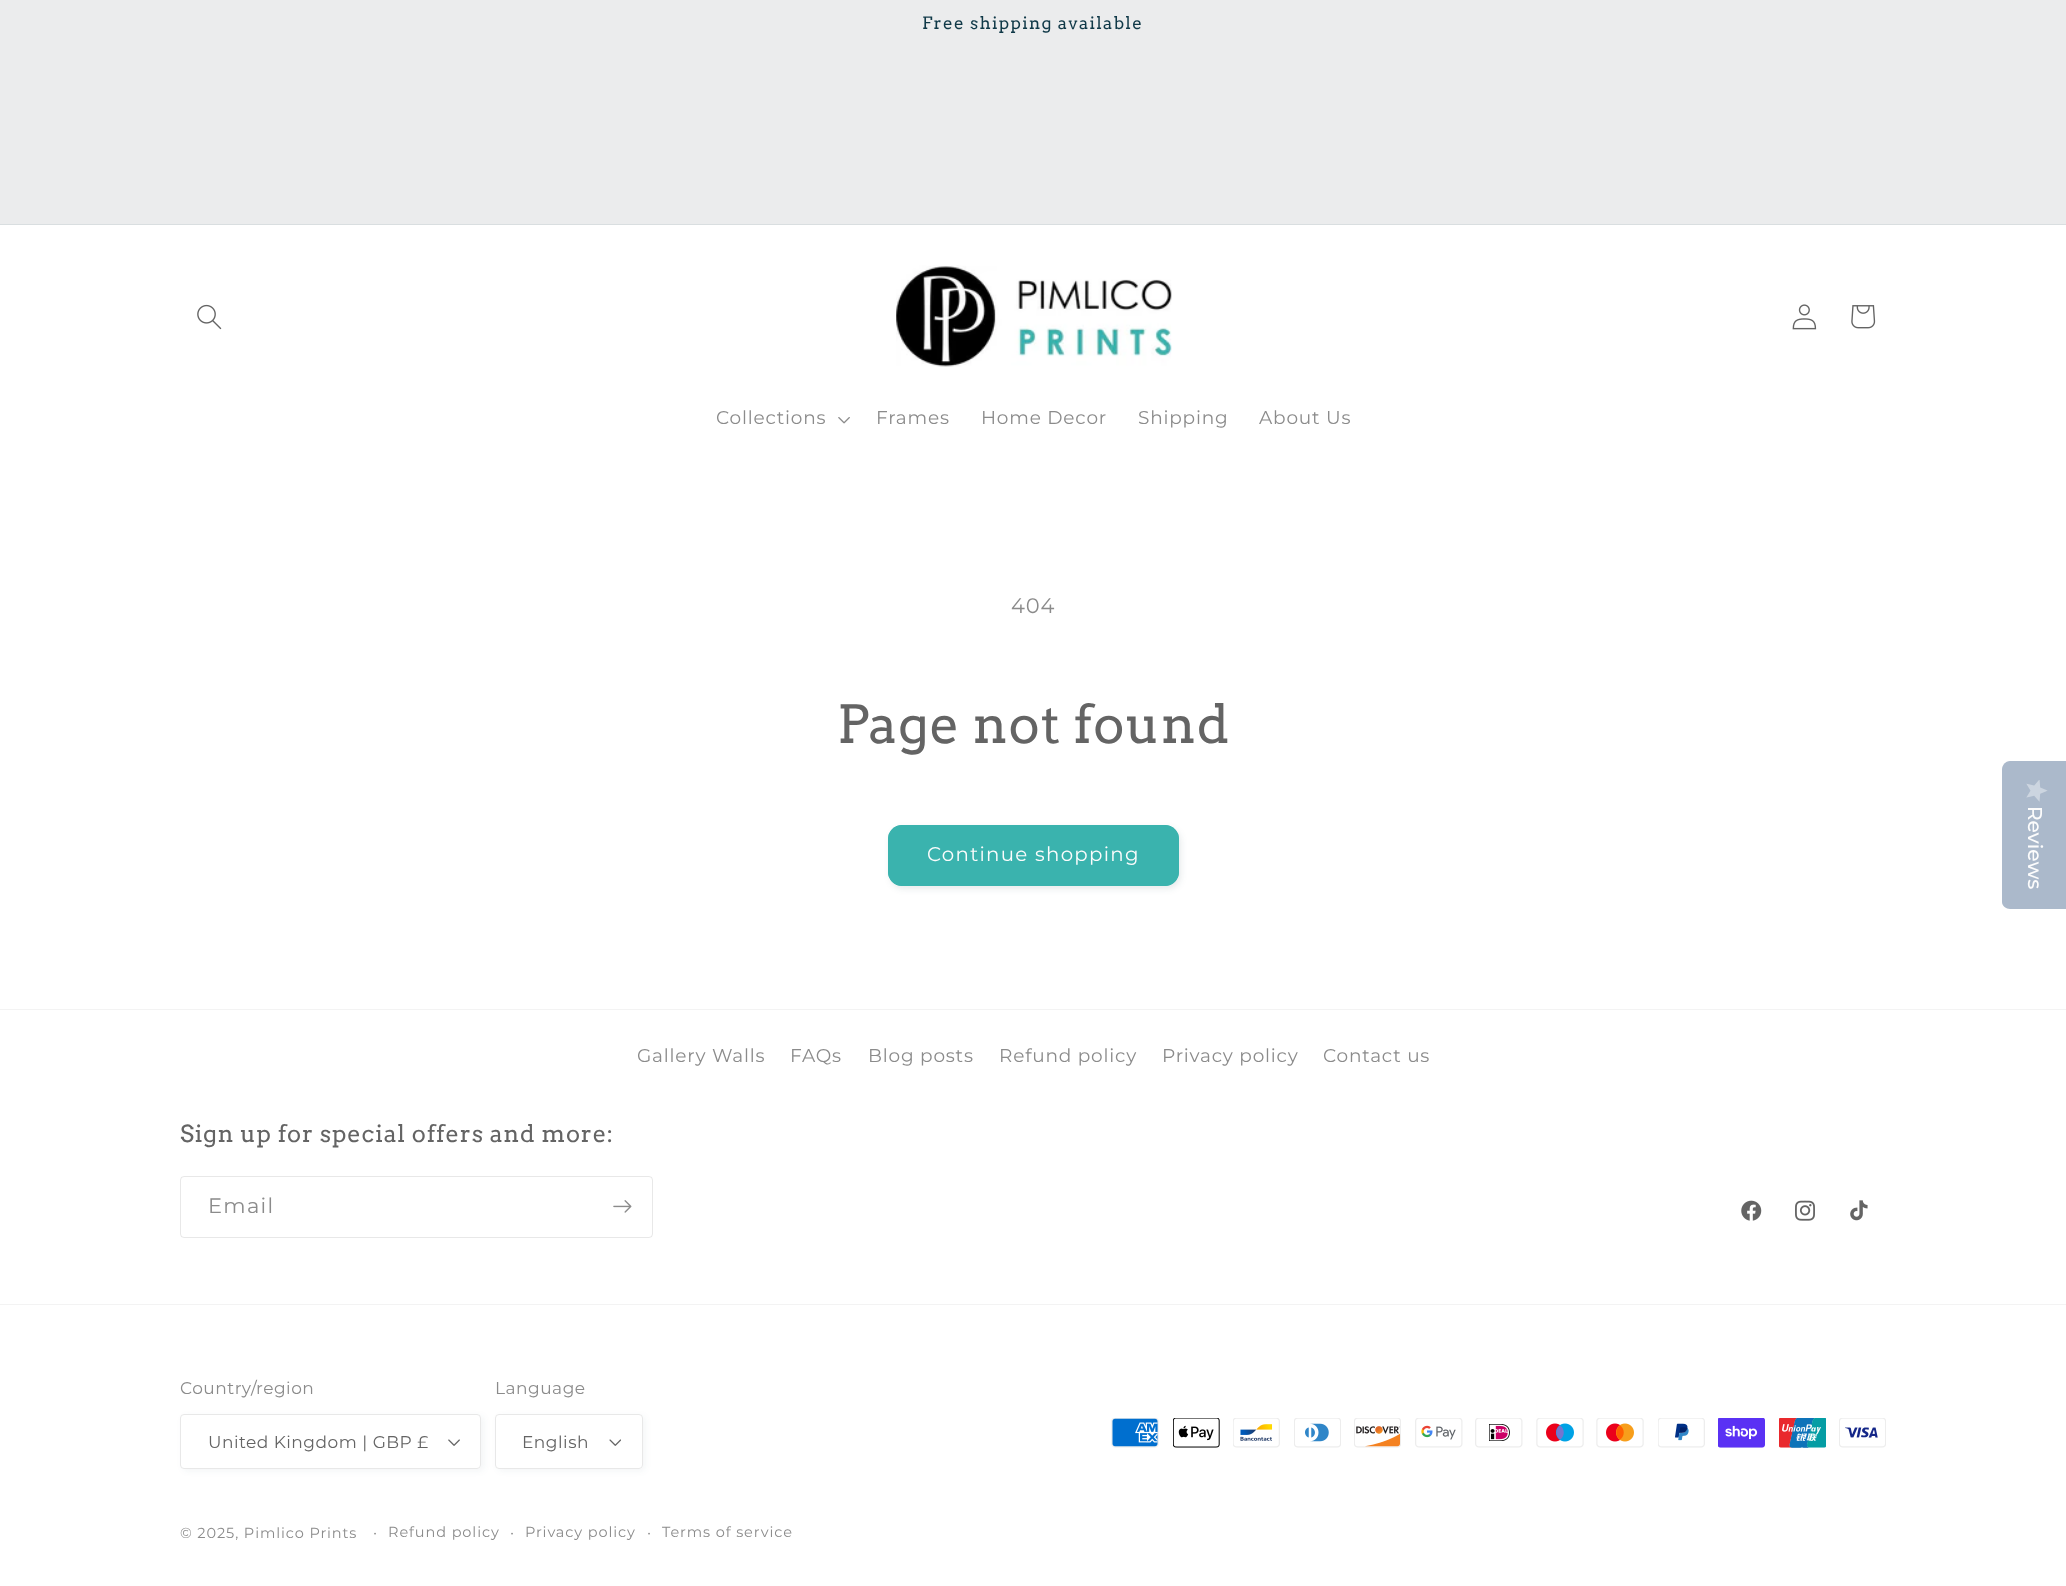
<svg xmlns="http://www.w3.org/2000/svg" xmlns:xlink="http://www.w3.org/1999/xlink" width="2066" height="1586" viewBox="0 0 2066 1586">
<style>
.cls-1{font:17px Arvo;letter-spacing:1.3px;fill:#103948}
.cls-2{font:18.5px Montserrat;letter-spacing:0.8px;fill:#8b8b8b}
.cls-3{font:21px Montserrat;letter-spacing:0.8px;fill:#8b8b8b}
.cls-4{font:52.5px Arvo;letter-spacing:0.8px;fill:#646464}
.cls-5{font:19.75px Montserrat;letter-spacing:1.3px;fill:#fcfcfc}
.cls-6{font:100 20px Montserrat;fill:#fcfcfc}
.cls-7{font:23.6px Arvo;letter-spacing:0.8px;fill:#646464}
.cls-8{font:21px Montserrat;letter-spacing:1.3px;fill:#8b8b8b}
.cls-9{font:17px Montserrat;letter-spacing:0.5px;fill:#8b8b8b}
.cls-10{font:17px Montserrat;letter-spacing:0.5px;fill:#646464}
.cls-11{font:14.5px Montserrat;letter-spacing:0.9px;fill:#8b8b8b}
.cls-12{font:16px Montserrat;letter-spacing:0.9px;fill:#8b8b8b}
</style>
<rect width="100%" height="100%" fill="#ffffff"/>
<rect fill="#ebeced" x="0" y="0" width="2066" height="224"/>
<rect fill="#d9dee0" x="0" y="224" width="2066" height="1"/>
<image xlink:href="image0.png" x="197" y="304" width="25" height="26"/>
<image xlink:href="image1.png" x="896" y="265" width="276" height="102"/>
<image xlink:href="image2.png" x="1792" y="304" width="25" height="26"/>
<image xlink:href="image3.png" x="1851" y="305" width="25" height="24"/>
<image xlink:href="image4.png" x="838" y="417" width="12" height="7"/>
<rect fill="#103948" fill-opacity="0.1" filter="blur(3px)" x="890" y="828" width="291" height="61" rx="14"/>
<rect fill="#3ab3ae" x="888" y="825" width="291" height="61" rx="14"/>
<rect fill="none" stroke="#3ab3ae" x="888.5" y="825.5" width="290" height="60" rx="13.5"/>
<path fill="#abb9cb" d="M2066 761V909H2010C2006 909 2002 906 2002 902V769C2002 765 2006 761 2010 761Z"/>
<image xlink:href="image5.png" x="2026" y="780" width="22" height="22"/>
<rect fill="#f3f3f3" x="0" y="1009" width="2066" height="1"/>
<rect fill="none" stroke="#646464" stroke-opacity="0.15" x="180.5" y="1176.5" width="472" height="61" rx="3.5"/>
<image xlink:href="image6.png" x="613" y="1200" width="19" height="13"/>
<image xlink:href="image7.png" x="1741" y="1200" width="21" height="21"/>
<image xlink:href="image8.png" x="1795" y="1200" width="20" height="21"/>
<image xlink:href="image9.png" x="1850" y="1200" width="18" height="21"/>
<rect fill="#f3f3f3" x="0" y="1304" width="2066" height="1"/>
<rect fill="#103948" fill-opacity="0.05" filter="blur(3px)" x="183" y="1416" width="301" height="55" rx="4"/>
<rect fill="#ffffff" x="180" y="1414" width="301" height="55" rx="4"/>
<image xlink:href="image10.png" x="448" y="1439" width="12" height="7"/>
<rect fill="none" stroke="#e8e8e8" x="180.5" y="1414.5" width="300" height="54" rx="3.5"/>
<rect fill="#103948" fill-opacity="0.05" filter="blur(3px)" x="498" y="1416" width="147" height="55" rx="4"/>
<rect fill="#ffffff" x="495" y="1414" width="148" height="55" rx="4"/>
<image xlink:href="image11.png" x="609" y="1439" width="12" height="7"/>
<rect fill="none" stroke="#e8e8e8" x="495.5" y="1414.5" width="147" height="54" rx="3.5"/>
<image xlink:href="image12.png" x="1111" y="1418" width="48" height="30"/>
<image xlink:href="image13.png" x="1173" y="1418" width="47" height="30"/>
<image xlink:href="image14.png" x="1233" y="1418" width="47" height="30"/>
<image xlink:href="image15.png" x="1294" y="1418" width="47" height="30"/>
<image xlink:href="image16.png" x="1354" y="1418" width="47" height="30"/>
<image xlink:href="image17.png" x="1415" y="1418" width="48" height="30"/>
<image xlink:href="image18.png" x="1475" y="1418" width="48" height="30"/>
<image xlink:href="image19.png" x="1536" y="1418" width="48" height="30"/>
<image xlink:href="image20.png" x="1596" y="1418" width="48" height="30"/>
<image xlink:href="image21.png" x="1658" y="1418" width="47" height="30"/>
<image xlink:href="image22.png" x="1718" y="1418" width="47" height="30"/>
<image xlink:href="image23.png" x="1779" y="1418" width="47" height="30"/>
<image xlink:href="image24.png" x="1839" y="1418" width="47" height="30"/>
<text class="cls-1" x="922" y="29">Free shipping available</text>
<text class="cls-2" x="716" y="424">Collections</text>
<text class="cls-2" x="876" y="424">Frames</text>
<text class="cls-2" x="981" y="424">Home Decor</text>
<text class="cls-2" x="1138" y="424">Shipping</text>
<text class="cls-2" x="1259" y="424">About Us</text>
<text class="cls-3" x="1011" y="613">404</text>
<text class="cls-4" x="837" y="743">Page not found</text>
<text class="cls-5" x="927" y="861">Continue shopping</text>
<text class="cls-6" x="2028" y="806" transform="rotate(90 2028 806)">Reviews</text>
<text class="cls-2" x="637" y="1062">Gallery Walls</text>
<text class="cls-2" x="790" y="1062">FAQs</text>
<text class="cls-2" x="868" y="1062">Blog posts</text>
<text class="cls-2" x="999" y="1062">Refund policy</text>
<text class="cls-2" x="1162" y="1062">Privacy policy</text>
<text class="cls-2" x="1323" y="1062">Contact us</text>
<text class="cls-7" x="180" y="1142">Sign up for special offers and more:</text>
<text class="cls-8" x="208" y="1213">Email</text>
<text class="cls-9" x="180" y="1394">Country/region</text>
<text class="cls-10" x="208" y="1448">United Kingdom | GBP £</text>
<text class="cls-9" x="495" y="1394">Language</text>
<text class="cls-10" x="522" y="1448">English</text>
<text class="cls-11" x="180" y="1538">© 2025, Pimlico Prints</text>
<text class="cls-12" x="373" y="1538">·</text>
<text class="cls-11" x="388" y="1537">Refund policy</text>
<text class="cls-12" x="510" y="1538">·</text>
<text class="cls-11" x="525" y="1537">Privacy policy</text>
<text class="cls-12" x="647" y="1538">·</text>
<text class="cls-11" x="662" y="1537">Terms of service</text>
</svg>
